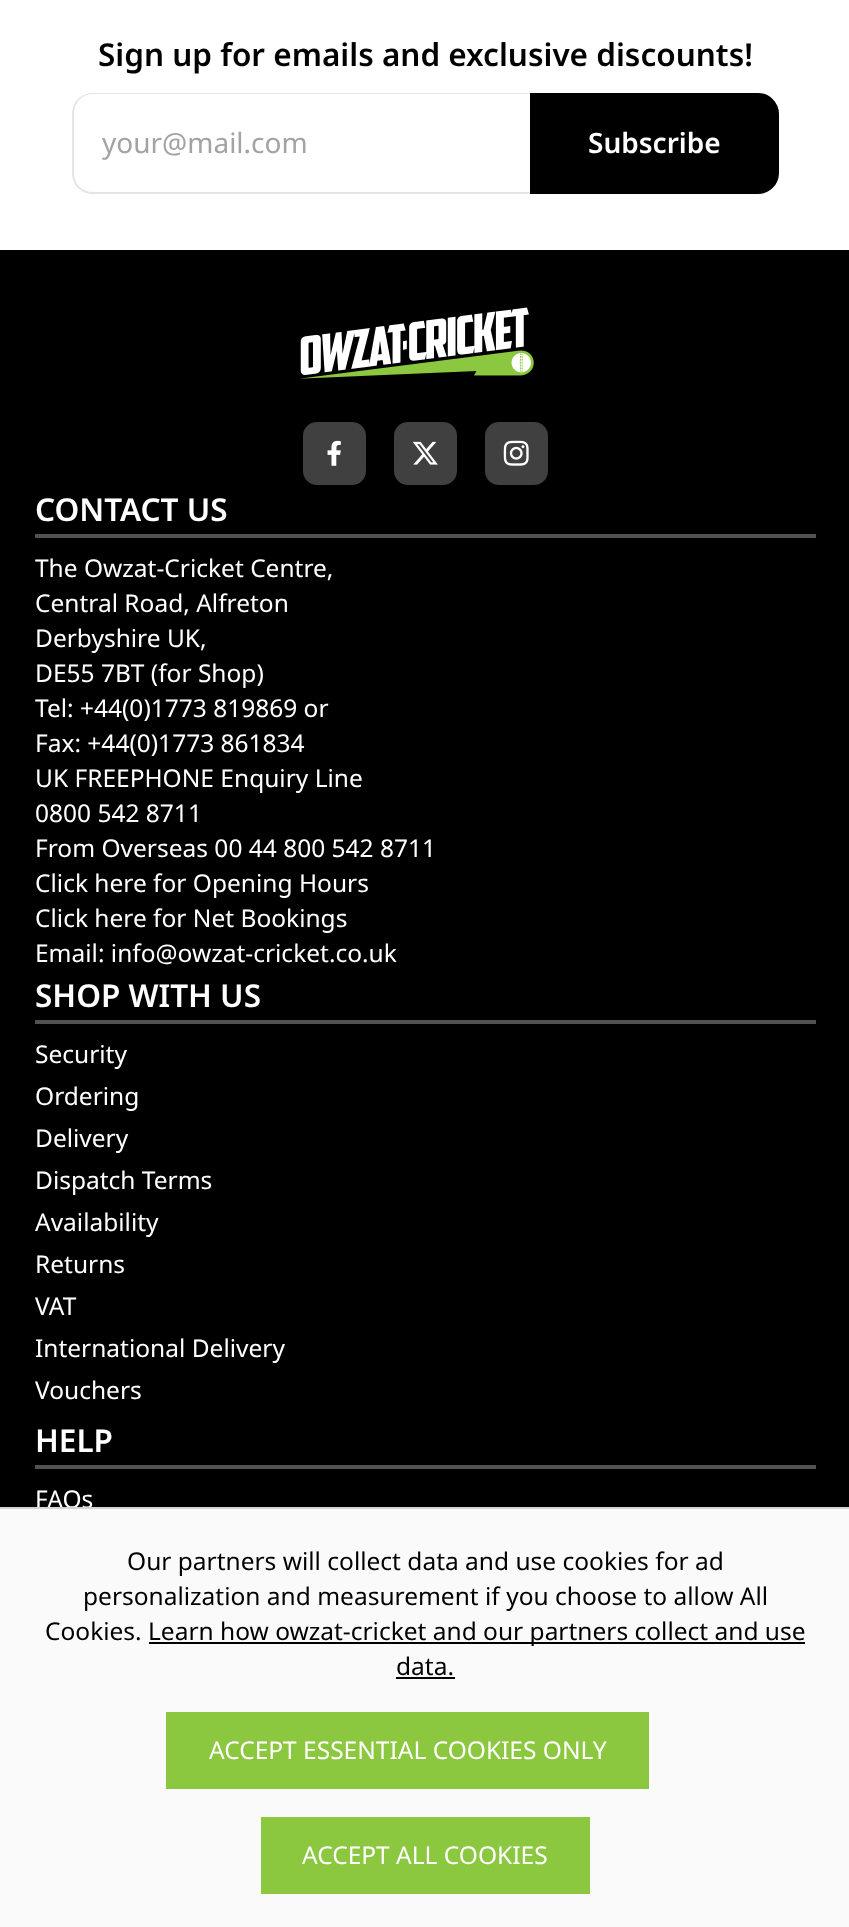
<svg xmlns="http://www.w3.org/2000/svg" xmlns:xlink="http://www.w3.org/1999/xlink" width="849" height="1927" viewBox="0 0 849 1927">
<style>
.cls-1{font:600 31.5px Noto Sans;fill:#000000}
.cls-2{font:28px Noto Sans;fill:#a3a3a3}
.cls-3{font:600 28px Noto Sans;fill:#ffffff}
.cls-4{font:600 31.5px Noto Sans;fill:#ffffff}
.cls-5{font:24.5px Noto Sans;fill:#ffffff}
.cls-6{font:24.5px Noto Sans;fill:#000000}
</style>
<rect width="100%" height="100%" fill="#ffffff"/>
<path fill="#e5e5e5" fill-rule="evenodd" d="M93 93H530V194H93C81 194 72 185 72 173V114C72 102 81 93 93 93ZM93 94H530V192H93C82 192 74 184 74 173V114C74 103 82 94 93 94Z"/>
<path fill="#000000" stroke="#000000" stroke-width="2" d="M531 94H758C769 94 778 103 778 114V173C778 184 769 193 758 193H531Z"/>
<rect fill="#000000" x="0" y="250" width="849" height="1257"/>
<image xlink:href="image0.png" x="300" y="307" width="234" height="72"/>
<rect fill="#404040" x="303" y="422" width="63" height="63" rx="14"/>
<image xlink:href="image1.png" x="327" y="440" width="14" height="26"/>
<rect fill="#404040" x="394" y="422" width="63" height="63" rx="14"/>
<image xlink:href="image2.png" x="412" y="441" width="26" height="24"/>
<rect fill="#404040" x="485" y="422" width="63" height="63" rx="14"/>
<image xlink:href="image3.png" x="503" y="440" width="26" height="26"/>
<rect fill="#525252" x="35" y="534" width="781" height="4"/>
<rect fill="#525252" x="35" y="1020" width="781" height="4"/>
<rect fill="#525252" x="35" y="1465" width="781" height="4"/>
<text class="cls-1" x="98" y="66">Sign up for emails and exclusive discounts!</text>
<text class="cls-2" x="102" y="153">your@mail.com</text>
<text class="cls-3" x="588" y="153">Subscribe</text>
<text class="cls-4" x="35" y="521">CONTACT US</text>
<text class="cls-5"><tspan x="35" y="577">The Owzat-Cricket Centre,</tspan><tspan x="35" y="612">Central Road, Alfreton</tspan><tspan x="35" y="647">Derbyshire UK,</tspan><tspan x="35" y="682">DE55 7BT (for Shop)</tspan><tspan x="35" y="717">Tel: +44(0)1773 819869 or</tspan><tspan x="35" y="752">Fax: +44(0)1773 861834</tspan><tspan x="35" y="787">UK FREEPHONE Enquiry Line</tspan><tspan x="35" y="822">0800 542 8711</tspan><tspan x="35" y="857">From Overseas 00 44 800 542 8711</tspan><tspan x="35" y="892">Click here for Opening Hours</tspan><tspan x="35" y="927">Click here for Net Bookings</tspan><tspan x="35" y="962">Email: info@owzat-cricket.co.uk</tspan></text>
<text class="cls-4" x="35" y="1007">SHOP WITH US</text>
<text class="cls-5"><tspan x="35" y="1063">Security</tspan><tspan x="35" y="1105">Ordering</tspan><tspan x="35" y="1147">Delivery</tspan><tspan x="35" y="1189">Dispatch Terms</tspan><tspan x="35" y="1231">Availability</tspan><tspan x="35" y="1273">Returns</tspan><tspan x="35" y="1315">VAT</tspan><tspan x="35" y="1357">International Delivery</tspan><tspan x="35" y="1399">Vouchers</tspan></text>
<text class="cls-4" x="35" y="1452">HELP</text>
<text class="cls-5" x="35" y="1508">FAQs</text>
<rect fill="#fafafa" x="0" y="1509" width="849" height="418"/>
<rect fill="#d4d4d4" x="0" y="1507" width="849" height="2"/>
<text class="cls-6" x="127" y="1570">Our partners will collect data and use cookies for ad</text>
<text class="cls-6" x="83" y="1605">personalization and measurement if you choose to allow All</text>
<text class="cls-6" x="45" y="1640">Cookies.</text>
<rect fill="#000000" x="149" y="1642" width="656" height="2"/>
<text class="cls-6" x="148" y="1640">Learn how owzat-cricket and our partners collect and use</text>
<text class="cls-6" x="396" y="1675">data.</text>
<rect fill="#000000" x="396" y="1677" width="59" height="2"/>
<rect fill="#8cc740" x="166" y="1712" width="483" height="77"/>
<text class="cls-5" x="209" y="1759">ACCEPT ESSENTIAL COOKIES ONLY</text>
<rect fill="#8cc740" x="261" y="1817" width="329" height="77"/>
<text class="cls-5" x="302" y="1864">ACCEPT ALL COOKIES</text>
</svg>
